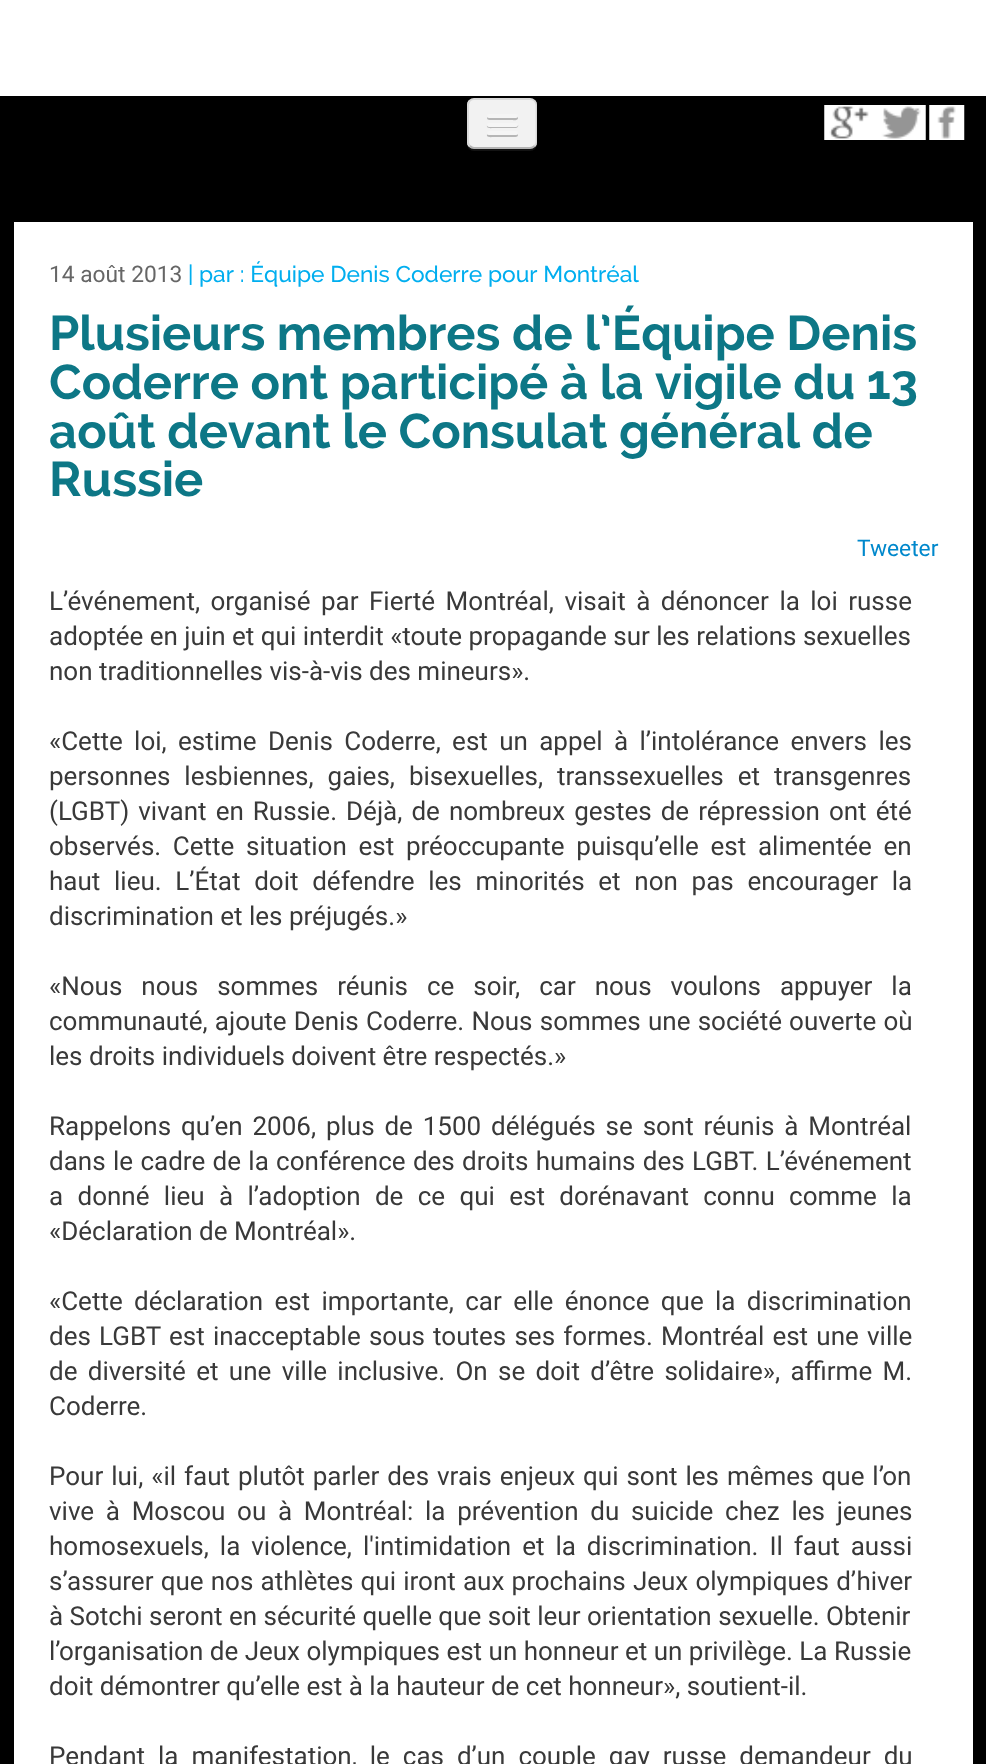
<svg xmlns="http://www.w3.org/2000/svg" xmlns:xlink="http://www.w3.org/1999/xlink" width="986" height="1764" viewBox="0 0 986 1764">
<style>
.cls-1{font:22.75px Roboto;fill:#666666}
.cls-2{font:500 22.75px Raleway;fill:#00aeef}
.cls-3{font:bold 48.75px Raleway;fill:#0d7786}
.cls-4{font:22.75px Roboto;fill:#0088cc}
.cls-5{font:26px Roboto;fill:#393939}
</style>
<defs>
<clipPath id="clip1"><rect x="467" y="98" width="70" height="51" rx="7"/></clipPath>
</defs>
<rect width="100%" height="100%" fill="#000000"/>
<rect fill="#ffffff" x="0" y="0" width="986" height="96"/>
<path fill="#131313" d="M467 105V144C467 148 470 151 474 151H530C534 151 537 148 537 144C536 147 533 149 530 149H474C470 149 467 146 467 142Z"/>
<rect fill="#f2f2f2" x="467" y="98" width="70" height="51" rx="7"/>
<g clip-path="url(#clip1)">
<rect fill="#f2f2f2" x="467" y="100" width="70" height="47"/>
</g>
<path fill="none" stroke="#000000" stroke-opacity="0.25" stroke-width="1.8" d="M534.5 146C533.5 147 532 148 530 148H474C472.5 148 471 147 470 146"/>
<path fill="none" stroke="#000000" stroke-opacity="0.1" stroke-width="1.8" d="M470 146C469 145 468 143.5 468 142V105C468 103.5 469 102 470 100.5C471 99.5 472.5 99 474 99H530C532 99 533.5 99.5 534.5 100.5C535.5 102 536.5 103.5 536.5 105V142C536.5 143.5 535.5 145 534.5 146"/>
<path fill="#b6b6b6" d="M487.5 117C485 121 493 120 493.5 120H511.5C512.5 120 517.5 121 518 118.5C518 118 518 117 517.5 116.5L516.5 117C514 117.5 488 117.5 487.5 117Z"/>
<rect fill="#f5f5f5" x="487" y="114" width="31" height="4" rx="2"/>
<path fill="#b6b6b6" d="M487 125.5C486 129 492.5 128 493.5 128H511.5C512.5 128 519.5 129 518 125L516.5 126H488Z"/>
<rect fill="#f5f5f5" x="487" y="123" width="31" height="4" rx="2"/>
<path fill="#b6b6b6" d="M487 134.5C486 138 492.5 137 493.5 137H511.5C512 137 520 138 517.5 134L516.5 134.5H488Z"/>
<rect fill="#f5f5f5" x="487" y="131" width="31" height="4" rx="2"/>
<image xlink:href="image0.png" x="824" y="105" width="51" height="35"/>
<image xlink:href="image1.png" x="875" y="105" width="51" height="35"/>
<image xlink:href="image2.png" x="929" y="105" width="36" height="35"/>
<rect fill="#ffffff" x="14" y="222" width="959" height="1542"/>
<text class="cls-1" x="49" y="282">14 août 2013</text>
<text class="cls-2" x="188" y="282">| par : Équipe Denis Coderre pour Montréal</text>
<text class="cls-3"><tspan x="49" y="350">Plusieurs membres de l’Équipe Denis</tspan><tspan x="49" y="399">Coderre ont participé à la vigile du 13</tspan><tspan x="49" y="448">août devant le Consulat général de</tspan><tspan x="49" y="496">Russie</tspan></text>
<text class="cls-4" x="857" y="556">Tweeter</text>
<text class="cls-5"><tspan x="49" y="610" word-spacing="4">L’événement, organisé par Fierté Montréal, visait à dénoncer la loi russe</tspan><tspan x="49" y="645">adoptée en juin et qui interdit «toute propagande sur les relations sexuelles</tspan><tspan x="49" y="680">non traditionnelles vis-à-vis des mineurs».</tspan></text>
<text class="cls-5"><tspan x="49" y="750" word-spacing="4.9">«Cette loi, estime Denis Coderre, est un appel à l’intolérance envers les</tspan><tspan x="49" y="785" word-spacing="7.5">personnes lesbiennes, gaies, bisexuelles, transsexuelles et transgenres</tspan><tspan x="49" y="820" word-spacing="2.6">(LGBT) vivant en Russie. Déjà, de nombreux gestes de répression ont été</tspan><tspan x="49" y="855" word-spacing="5.25">observés. Cette situation est préoccupante puisqu’elle est alimentée en</tspan><tspan x="49" y="890" word-spacing="7.25">haut lieu. L’État doit défendre les minorités et non pas encourager la</tspan><tspan x="49" y="925">discrimination et les préjugés.»</tspan></text>
<text class="cls-5"><tspan x="49" y="995" word-spacing="12.5">«Nous nous sommes réunis ce soir, car nous voulons appuyer la</tspan><tspan x="49" y="1030" word-spacing="0.75">communauté, ajoute Denis Coderre. Nous sommes une société ouverte où</tspan><tspan x="49" y="1065">les droits individuels doivent être respectés.»</tspan></text>
<text class="cls-5"><tspan x="49" y="1135" word-spacing="3.4">Rappelons qu’en 2006, plus de 1500 délégués se sont réunis à Montréal</tspan><tspan x="49" y="1170" word-spacing="0.9">dans le cadre de la conférence des droits humains des LGBT. L’événement</tspan><tspan x="49" y="1205" word-spacing="7.9">a donné lieu à l’adoption de ce qui est dorénavant connu comme la</tspan><tspan x="49" y="1240">«Déclaration de Montréal».</tspan></text>
<text class="cls-5"><tspan x="49" y="1310" word-spacing="4.9">«Cette déclaration est importante, car elle énonce que la discrimination</tspan><tspan x="49" y="1345" word-spacing="1.75">des LGBT est inacceptable sous toutes ses formes. Montréal est une ville</tspan><tspan x="49" y="1380" word-spacing="3.9">de diversité et une ville inclusive. On se doit d’être solidaire», affirme M.</tspan><tspan x="49" y="1415">Coderre.</tspan></text>
<text class="cls-5"><tspan x="49" y="1485" word-spacing="1.5">Pour lui, «il faut plutôt parler des vrais enjeux qui sont les mêmes que l’on</tspan><tspan x="49" y="1520" word-spacing="5.25">vive à Moscou ou à Montréal: la prévention du suicide chez les jeunes</tspan><tspan x="49" y="1555" word-spacing="4.5">homosexuels, la violence, l'intimidation et la discrimination. Il faut aussi</tspan><tspan x="49" y="1590" word-spacing="0.75">s’assurer que nos athlètes qui iront aux prochains Jeux olympiques d’hiver</tspan><tspan x="49" y="1625">à Sotchi seront en sécurité quelle que soit leur orientation sexuelle. Obtenir</tspan><tspan x="49" y="1660">l’organisation de Jeux olympiques est un honneur et un privilège. La Russie</tspan><tspan x="49" y="1695">doit démontrer qu’elle est à la hauteur de cet honneur», soutient-il.</tspan></text>
<text class="cls-5" x="49" y="1765" word-spacing="6.5">Pendant la manifestation, le cas d’un couple gay russe demandeur du</text>
</svg>
